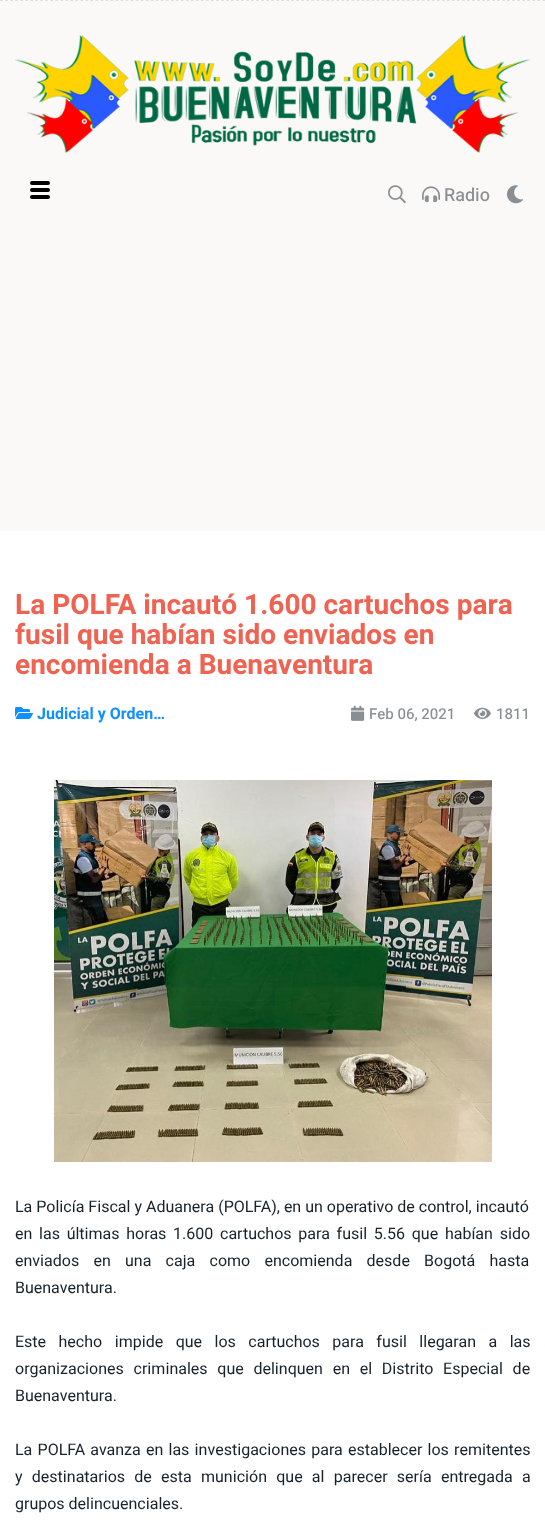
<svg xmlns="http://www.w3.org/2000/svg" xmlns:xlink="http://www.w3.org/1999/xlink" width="545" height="1523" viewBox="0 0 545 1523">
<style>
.cls-1{font:500 18px Heebo;fill:#8a8f94}
.cls-2{font:bold 28px Heebo;fill:#ee6352}
.cls-3{font:bold 16px Heebo;fill:#1091ff}
.cls-4{font:500 15px Heebo;fill:#8a8f94}
.cls-5{font:16px Heebo;fill:#17222b}
</style>
<rect width="100%" height="100%" fill="#ffffff"/>
<path fill="none" stroke="#dcdedf" stroke-dasharray="3 2.02" d="M0 .5H545"/>
<rect fill="#fbf8f8" x="0" y="1" width="545" height="530"/>
<image xlink:href="image0.png" x="15" y="35" width="515" height="118"/>
<rect fill="#000000" x="30" y="181" width="20" height="4" rx="2"/>
<rect fill="#000000" x="30" y="188" width="20" height="4" rx="2"/>
<rect fill="#000000" x="30" y="195" width="20" height="4" rx="2"/>
<image xlink:href="image1.png" x="388" y="185" width="18" height="19"/>
<image xlink:href="image2.png" x="422" y="186" width="18" height="17"/>
<image xlink:href="image3.png" x="507" y="185" width="16" height="19"/>
<image xlink:href="image4.png" x="15" y="707" width="18" height="12"/>
<image xlink:href="image5.png" x="351" y="705" width="14" height="16"/>
<image xlink:href="image6.png" x="474" y="707" width="17" height="12"/>
<image xlink:href="image7.png" x="54" y="780" width="438" height="382"/>
<text class="cls-1" x="444" y="201">Radio</text>
<text class="cls-2"><tspan x="15" y="614">La POLFA incautó 1.600 cartuchos para</tspan><tspan x="15" y="644">fusil que habían sido enviados en</tspan><tspan x="15" y="674">encomienda a Buenaventura</tspan></text>
<text class="cls-3" x="37" y="719">Judicial y Orden…</text>
<text class="cls-4" x="369" y="719">Feb 06, 2021</text>
<text class="cls-4" x="496" y="719">1811</text>
<text class="cls-5"><tspan x="15" y="1212">La Policía Fiscal y Aduanera (POLFA), en un operativo de control, incautó</tspan><tspan x="15" y="1239" word-spacing="2.75">en las últimas horas 1.600 cartuchos para fusil 5.56 que habían sido</tspan><tspan x="15" y="1266" word-spacing="10.25">enviados en una caja como encomienda desde Bogotá hasta</tspan><tspan x="15" y="1293">Buenaventura.</tspan></text>
<text class="cls-5"><tspan x="15" y="1347" word-spacing="8.5">Este hecho impide que los cartuchos para fusil llegaran a las</tspan><tspan x="15" y="1374" word-spacing="5.75">organizaciones criminales que delinquen en el Distrito Especial de</tspan><tspan x="15" y="1401">Buenaventura.</tspan></text>
<text class="cls-5"><tspan x="15" y="1455" word-spacing="1.25">La POLFA avanza en las investigaciones para establecer los remitentes</tspan><tspan x="15" y="1482" word-spacing="5.25">y destinatarios de esta munición que al parecer sería entregada a</tspan><tspan x="15" y="1509">grupos delincuenciales.</tspan></text>
</svg>
